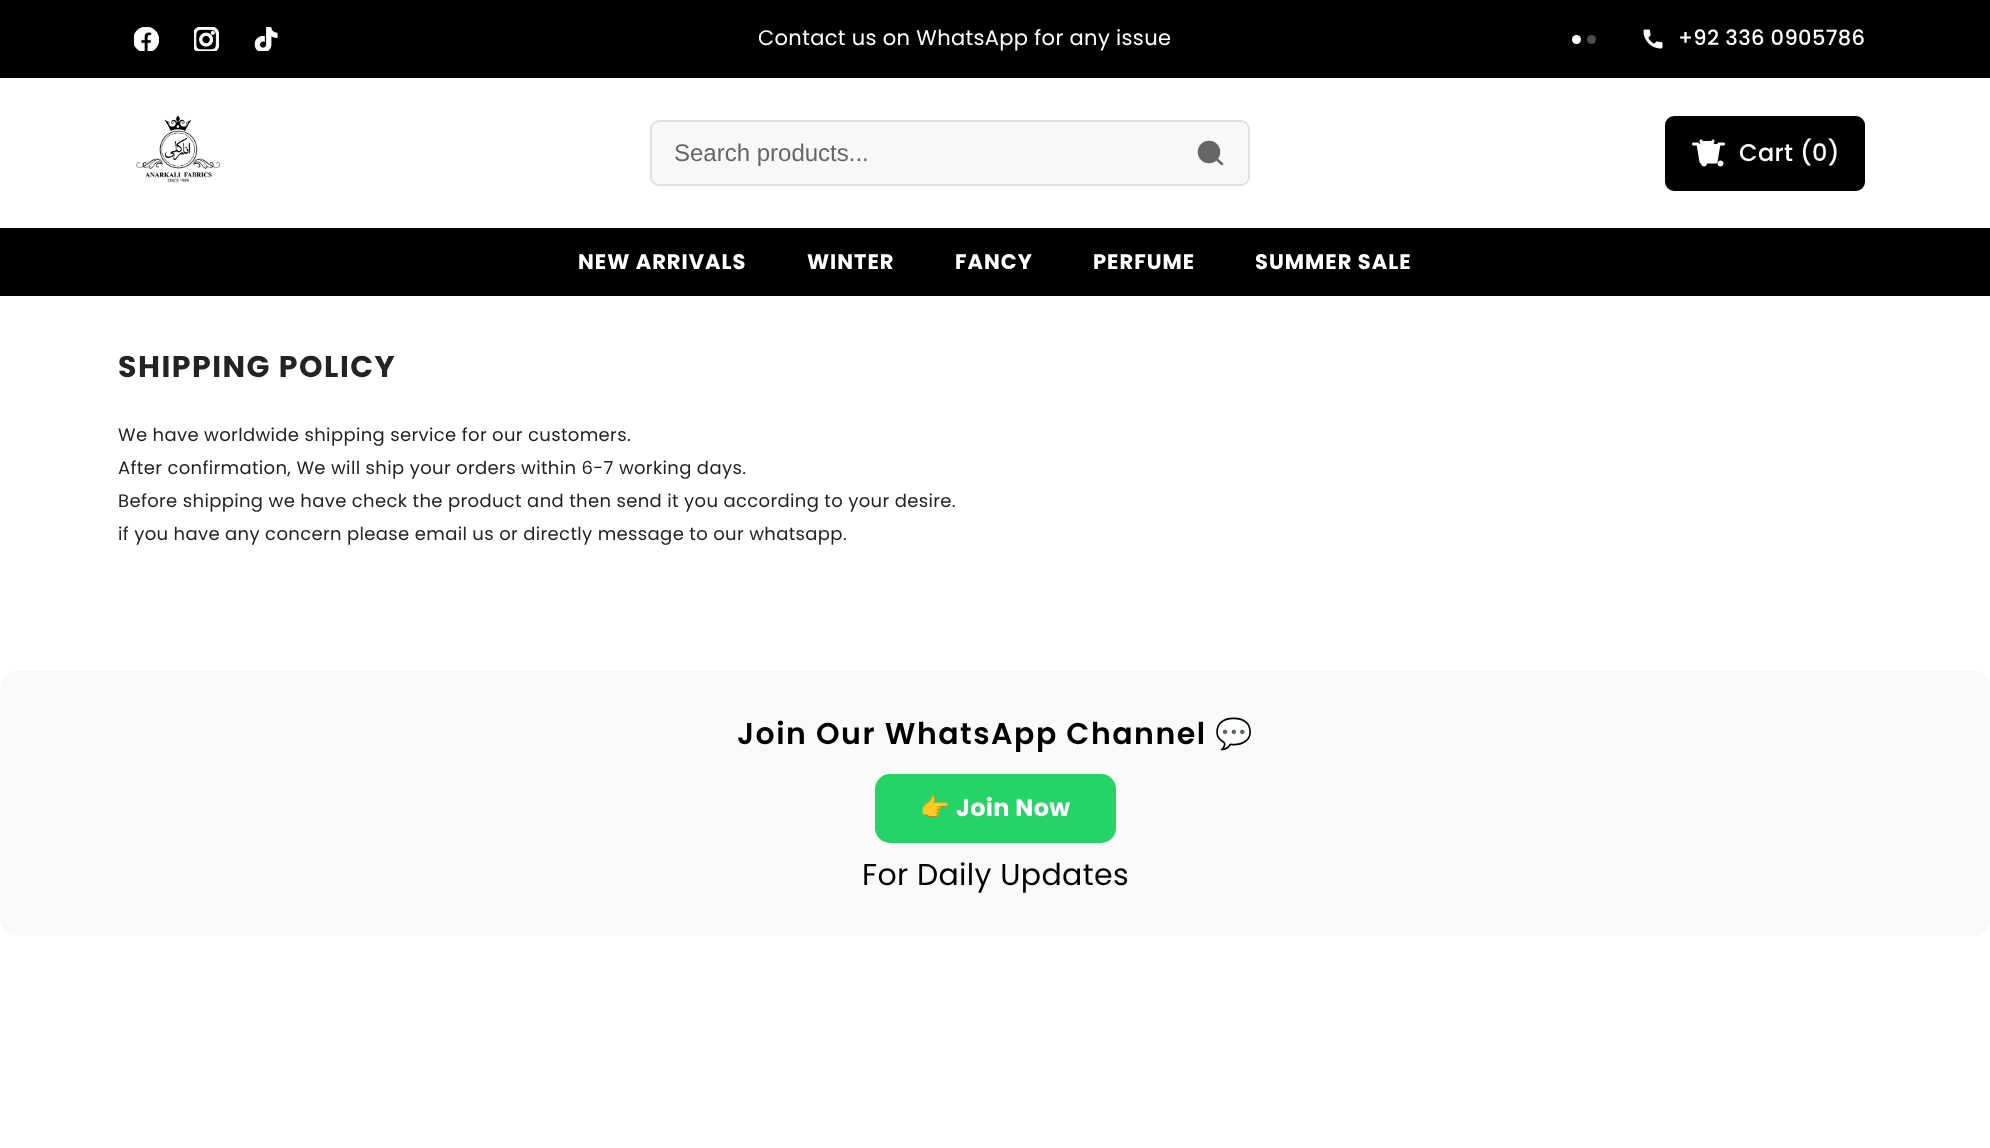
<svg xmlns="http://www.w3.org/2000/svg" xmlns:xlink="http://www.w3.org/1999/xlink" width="1990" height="1148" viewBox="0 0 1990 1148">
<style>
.cls-1{font:21px Poppins;letter-spacing:0.35px;fill:#ffffff}
.cls-2{font:500 21px Poppins;letter-spacing:0.35px;fill:#ffffff}
.cls-3{font:24px Liberation Sans;fill:#666666}
.cls-4{font:500 24px Poppins;letter-spacing:0.35px;fill:#ffffff}
.cls-5{font:bold 21px Poppins;letter-spacing:1px;fill:#ffffff}
.cls-6{font:bold 30px Poppins;letter-spacing:1.5px;fill:#232323}
.cls-7{font:18px Poppins;letter-spacing:0.35px;fill:#232323}
.cls-8{font:600 30px Poppins;letter-spacing:1.5px;fill:#000000}
.cls-9{font:bold 30px Noto Color Emoji;letter-spacing:1.5px;fill:#000000}
.cls-10{font:bold 24px Noto Color Emoji;letter-spacing:0.35px;fill:#ffffff}
.cls-11{font:bold 24px Poppins;letter-spacing:0.35px;fill:#ffffff}
.cls-12{font:30px Poppins;letter-spacing:0.35px;fill:#000000}
</style>
<rect width="100%" height="100%" fill="#ffffff"/>
<rect fill="#000000" x="0" y="0" width="1990" height="78"/>
<image xlink:href="image0.png" x="134" y="27" width="25" height="24"/>
<image xlink:href="image1.png" x="194" y="27" width="25" height="24"/>
<image xlink:href="image2.png" x="254" y="27" width="24" height="24"/>
<circle fill="#ffffff" cx="1576.5" cy="39.5" r="4.5"/>
<circle fill="#4d4d4d" cx="1591.5" cy="39.5" r="4.5"/>
<image xlink:href="image3.png" x="1643" y="29" width="20" height="20"/>
<image xlink:href="image4.png" x="136" y="115" width="85" height="68"/>
<rect fill="#f8f8f8" stroke="#e0e0e0" stroke-width="2" x="651" y="121" width="598" height="64" rx="8"/>
<circle fill="#666666" stroke="#666666" stroke-width="2.5" cx="1209" cy="152" r="10"/>
<path fill="none" stroke="#666666" stroke-width="2.5" stroke-linecap="round" stroke-linejoin="round" d="M1222 164L1216.5 159"/>
<rect fill="#000000" stroke="#000000" stroke-width="2" x="1666" y="117" width="198" height="73" rx="8"/>
<image xlink:href="image5.png" x="1692" y="139" width="33" height="28"/>
<rect fill="#000000" x="0" y="228" width="1990" height="68"/>
<rect fill="#f9f9f9" x="0" y="671" width="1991" height="265" rx="18"/>
<rect fill="#25d366" x="875" y="774" width="241" height="69" rx="15"/>
<text class="cls-1" x="758" y="45">Contact us on WhatsApp for any issue</text>
<text class="cls-2" x="1678" y="45">+92 336 0905786</text>
<text class="cls-3" x="674" y="161">Search products...</text>
<text class="cls-4" x="1739" y="161">Cart (0)</text>
<text class="cls-5" x="578" y="269">NEW ARRIVALS</text>
<text class="cls-5" x="807" y="269">WINTER</text>
<text class="cls-5" x="955" y="269">FANCY</text>
<text class="cls-5" x="1093" y="269">PERFUME</text>
<text class="cls-5" x="1255" y="269">SUMMER SALE</text>
<text class="cls-6" x="118" y="377">SHIPPING POLICY</text>
<text class="cls-7"><tspan x="118" y="441">We have worldwide shipping service for our customers.</tspan><tspan x="118" y="474">After confirmation, We will ship your orders within 6-7 working days.</tspan><tspan x="118" y="507">Before shipping we have check the product and then send it you according to your desire.</tspan><tspan x="118" y="540">if you have any concern please email us or directly message to our whatsapp.</tspan></text>
<text class="cls-8" x="737" y="744">Join Our WhatsApp Channel</text>
<text class="cls-9" x="1215" y="744">💬</text>
<text class="cls-10" x="920" y="816">👉</text>
<text class="cls-11" x="956" y="816">Join Now</text>
<text class="cls-12" x="862" y="885">For Daily Updates</text>
</svg>
